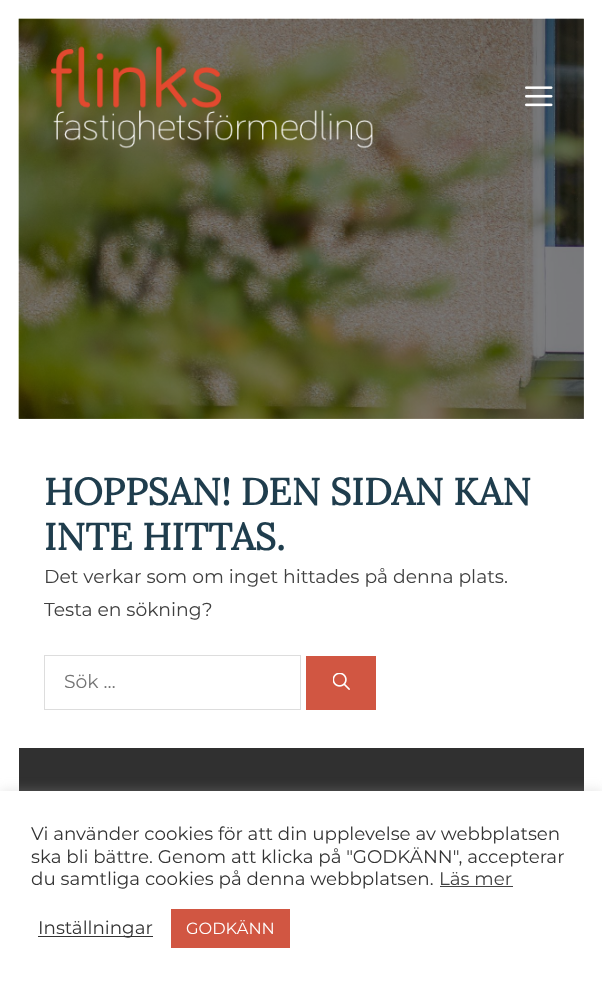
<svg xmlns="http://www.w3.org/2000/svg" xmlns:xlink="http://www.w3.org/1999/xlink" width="602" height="985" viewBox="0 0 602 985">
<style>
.cls-1{font:bold 37.5px Lora;fill:#1f3d4d}
.cls-2{font:100 18.75px Montserrat;fill:#404040}
.cls-3{font:100 18.75px Montserrat;fill:#757575}
.cls-4{font:100 18.3px Montserrat;fill:#333333}
.cls-5{font:100 18.3px Montserrat;fill:#404040}
.cls-6{font:100 16.25px Montserrat;fill:#ffffff}
</style>
<rect width="100%" height="100%" fill="#ffffff"/>
<rect fill="#808080" x="19" y="19" width="565" height="400"/>
<image xlink:href="image0.png" x="18" y="18" width="566" height="401"/>
<image xlink:href="image1.png" x="51" y="46" width="322" height="103"/>
<image xlink:href="image2.png" x="525" y="86" width="28" height="21"/>
<rect fill="none" stroke="#dddddd" x="44.5" y="655.5" width="256" height="54"/>
<rect fill="#d15642" x="306" y="656" width="70" height="54"/>
<image xlink:href="image3.png" x="333" y="673" width="17" height="17"/>
<rect fill="#303030" x="19" y="748" width="565" height="43"/>
<rect fill="#acabab" fill-opacity="0.3" filter="blur(6px)" x="0" y="790" width="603" height="194"/>
<rect fill="#ffffff" x="0" y="791" width="602" height="194"/>
<rect fill="#444444" x="440" y="886" width="73" height="1"/>
<rect fill="#333333" x="38" y="936" width="115" height="1"/>
<rect fill="#d15642" x="171" y="909" width="119" height="39"/>
<text class="cls-1"><tspan x="44" y="505">HOPPSAN! DEN SIDAN KAN</tspan><tspan x="44" y="550">INTE HITTAS.</tspan></text>
<text class="cls-2"><tspan x="44" y="583">Det verkar som om inget hittades på denna plats.</tspan><tspan x="44" y="616">Testa en sökning?</tspan></text>
<text class="cls-3" x="64" y="688">Sök …</text>
<text class="cls-4"><tspan x="31" y="840">Vi använder cookies för att din upplevelse av webbplatsen</tspan><tspan x="31" y="863">ska bli bättre. Genom att klicka på "GODKÄNN", accepterar</tspan><tspan x="31" y="885">du samtliga cookies på denna webbplatsen.</tspan></text>
<text class="cls-5" x="439" y="885">Läs mer</text>
<text class="cls-4" x="38" y="934">Inställningar</text>
<text class="cls-6" x="186" y="934">GODKÄNN</text>
</svg>
